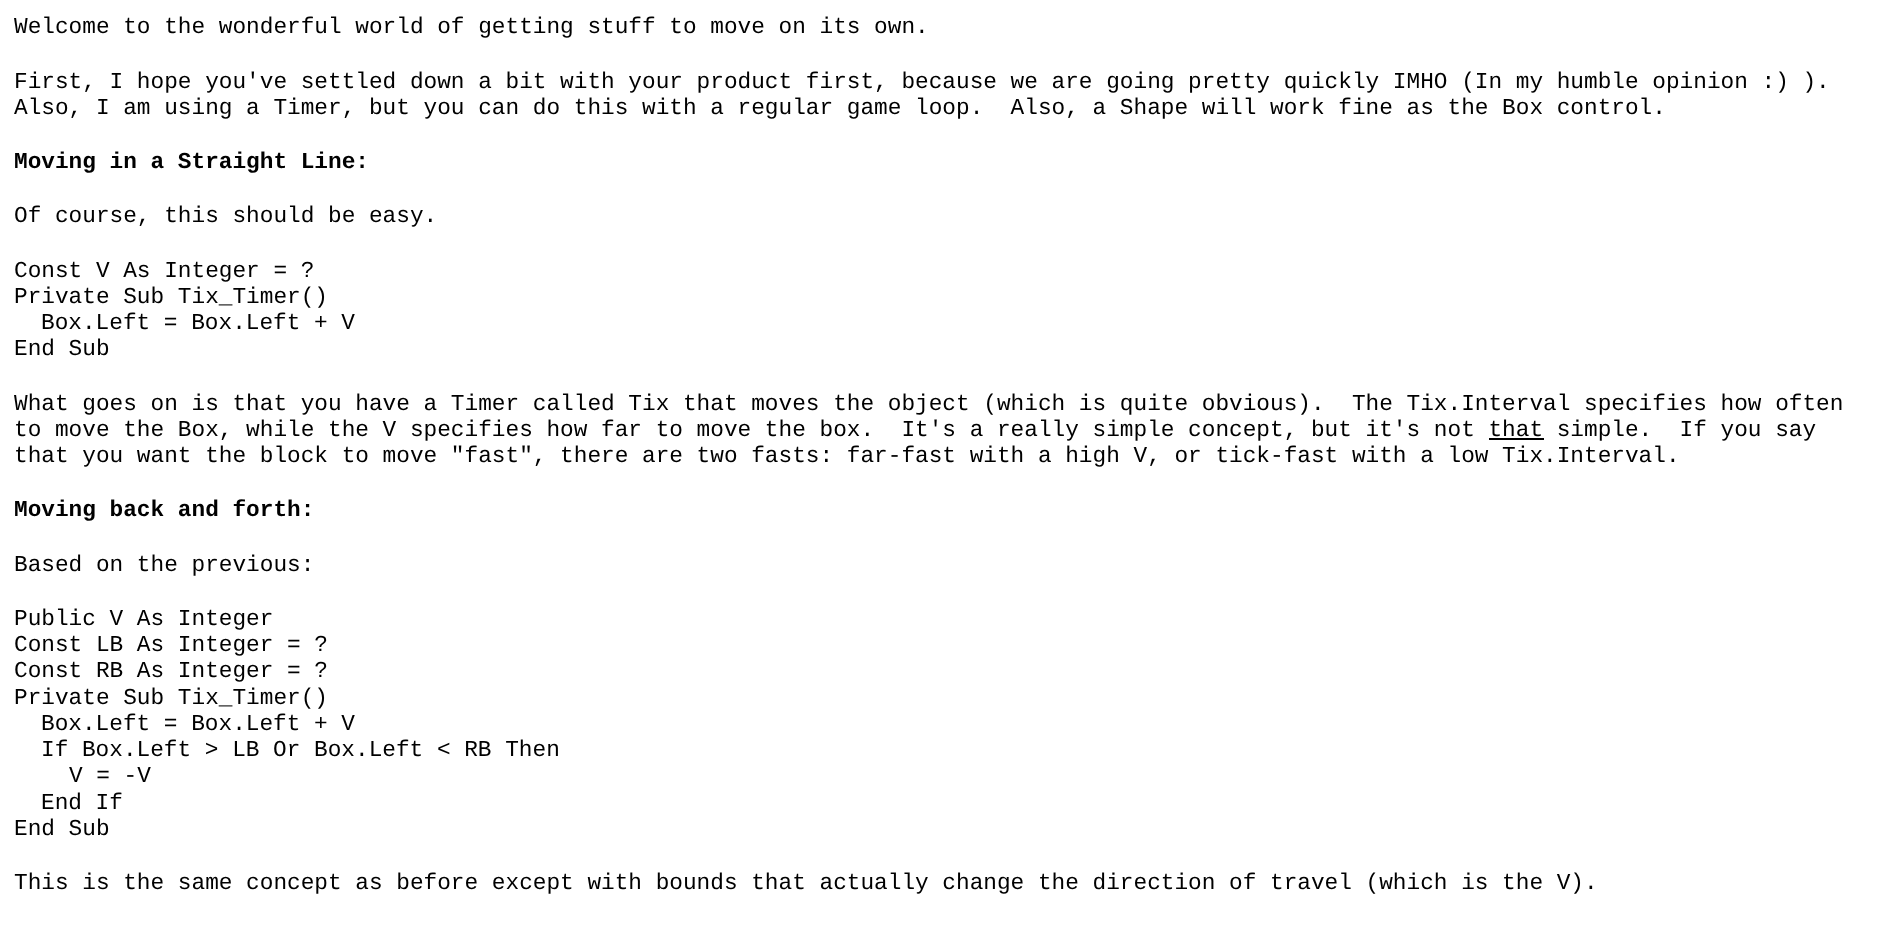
<svg xmlns="http://www.w3.org/2000/svg" xmlns:xlink="http://www.w3.org/1999/xlink" width="1893" height="933" viewBox="0 0 1893 933">
<style>
.cls-1{font:22.75px Liberation Mono;fill:#000000}
.cls-2{font:bold 22.75px Liberation Mono;fill:#000000}
</style>
<rect width="100%" height="100%" fill="#ffffff"/>
<rect fill="#000000" x="1489" y="438" width="55" height="2"/>
<text class="cls-1" x="14" y="33">Welcome to the wonderful world of getting stuff to move on its own.</text>
<text class="cls-1" xml:space="preserve"><tspan x="14" y="88">First, I hope you've settled down a bit with your product first, because we are going pretty quickly IMHO (In my humble opinion :) ).</tspan><tspan x="14" y="114">Also, I am using a Timer, but you can do this with a regular game loop.  Also, a Shape will work fine as the Box control.</tspan></text>
<text class="cls-2" x="14" y="168">Moving in a Straight Line:</text>
<text class="cls-1" x="14" y="222">Of course, this should be easy.</text>
<text class="cls-1"><tspan x="14" y="277">Const V As Integer = ?</tspan><tspan x="14" y="303">Private Sub Tix_Timer()</tspan></text>
<text class="cls-1" x="41" y="329">Box.Left = Box.Left + V</text>
<text class="cls-1" x="14" y="355">End Sub</text>
<text class="cls-1" xml:space="preserve"><tspan x="14" y="410">What goes on is that you have a Timer called Tix that moves the object (which is quite obvious).  The Tix.Interval specifies how often</tspan><tspan x="14" y="436">to move the Box, while the V specifies how far to move the box.  It's a really simple concept, but it's not that simple.  If you say</tspan><tspan x="14" y="462">that you want the block to move "fast", there are two fasts: far-fast with a high V, or tick-fast with a low Tix.Interval.</tspan></text>
<text class="cls-2" x="14" y="516">Moving back and forth:</text>
<text class="cls-1" x="14" y="571">Based on the previous:</text>
<text class="cls-1"><tspan x="14" y="625">Public V As Integer</tspan><tspan x="14" y="651">Const LB As Integer = ?</tspan><tspan x="14" y="677">Const RB As Integer = ?</tspan><tspan x="14" y="704">Private Sub Tix_Timer()</tspan></text>
<text class="cls-1"><tspan x="41" y="730">Box.Left = Box.Left + V</tspan><tspan x="41" y="756">If Box.Left &gt; LB Or Box.Left &lt; RB Then</tspan></text>
<text class="cls-1" x="69" y="782">V = -V</text>
<text class="cls-1" x="41" y="809">End If</text>
<text class="cls-1" x="14" y="835">End Sub</text>
<text class="cls-1" x="14" y="889">This is the same concept as before except with bounds that actually change the direction of travel (which is the V).</text>
</svg>
